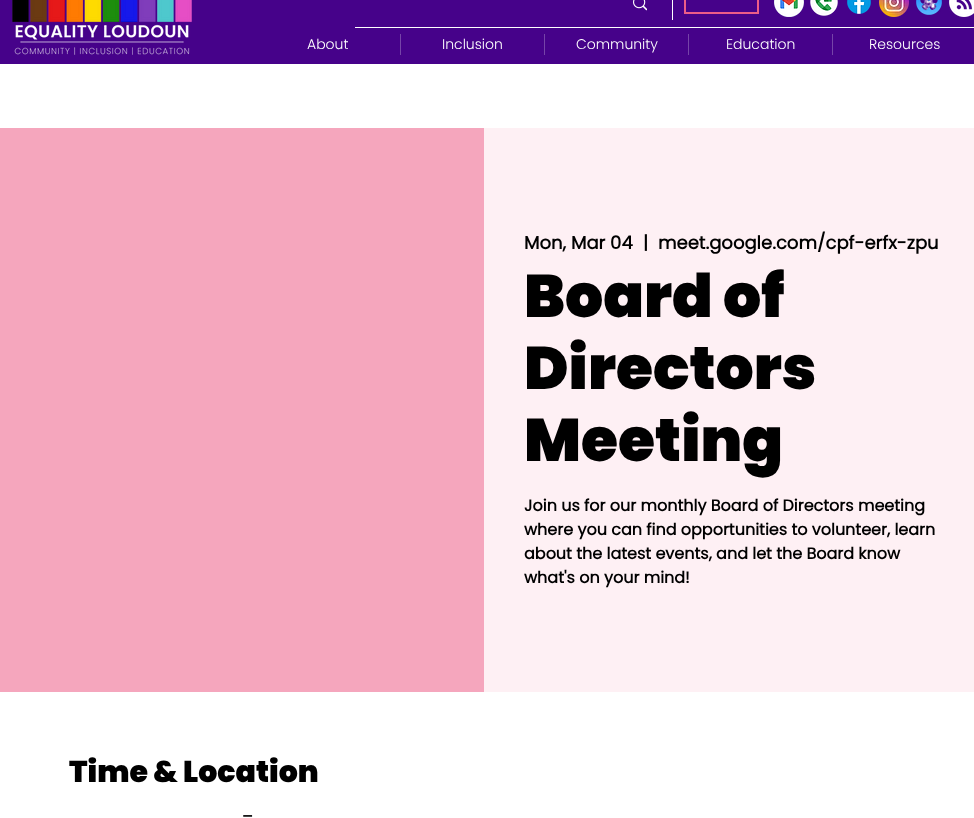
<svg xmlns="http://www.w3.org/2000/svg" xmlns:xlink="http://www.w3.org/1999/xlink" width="974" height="818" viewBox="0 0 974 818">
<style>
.cls-1{font:300 14px Poppins;fill:#ffffff}
.cls-2{font:bold 18px Poppins;fill:#000000}
.cls-3{font:900 60px Poppins;fill:#000000}
.cls-4{font:bold 16px Poppins;fill:#000000}
.cls-5{font:900 30px Poppins;fill:#000000}
</style>
<rect width="100%" height="100%" fill="#ffffff"/>
<rect fill="#46028a" x="0" y="0" width="974" height="64"/>
<image xlink:href="image0.png" x="12" y="0" width="180" height="55"/>
<image xlink:href="image1.png" x="633" y="0" width="14" height="11"/>
<rect fill="#ffffff" x="672" y="0" width="1" height="20"/>
<rect fill="none" stroke="#ec5e87" stroke-width="2" x="685" y="-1" width="73" height="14"/>
<image xlink:href="image2.png" x="774" y="0" width="30" height="17"/>
<image xlink:href="image3.png" x="810" y="0" width="28" height="16"/>
<image xlink:href="image4.png" x="847" y="0" width="24" height="14"/>
<image xlink:href="image5.png" x="879" y="0" width="30" height="17"/>
<image xlink:href="image6.png" x="916" y="0" width="26" height="15"/>
<image xlink:href="image7.png" x="949" y="0" width="25" height="17"/>
<rect fill="#ffffff" x="355" y="27" width="619" height="1"/>
<rect fill="#7644a8" x="400" y="34" width="1" height="21"/>
<rect fill="#7644a8" x="544" y="34" width="1" height="21"/>
<rect fill="#7644a8" x="688" y="34" width="1" height="21"/>
<rect fill="#7644a8" x="832" y="34" width="1" height="21"/>
<rect fill="#f5a6bd" x="0" y="128" width="484" height="564"/>
<rect fill="#fef0f4" x="484" y="128" width="490" height="564"/>
<text class="cls-1" x="307" y="49">About</text>
<text class="cls-1" x="442" y="49">Inclusion</text>
<text class="cls-1" x="576" y="49">Community</text>
<text class="cls-1" x="726" y="49">Education</text>
<text class="cls-1" x="869" y="49">Resources</text>
<text class="cls-2" x="524" y="249">Mon, Mar 04</text>
<text class="cls-2" x="643" y="249">|</text>
<text class="cls-2" x="658" y="249">meet.google.com/cpf-erfx-zpu</text>
<text class="cls-3"><tspan x="524" y="317">Board of</tspan><tspan x="524" y="389">Directors</tspan><tspan x="524" y="461">Meeting</tspan></text>
<text class="cls-4"><tspan x="524" y="511">Join us for our monthly Board of Directors meeting</tspan><tspan x="524" y="535">where you can find opportunities to volunteer, learn</tspan><tspan x="524" y="559">about the latest events, and let the Board know</tspan><tspan x="524" y="583">what's on your mind!</tspan></text>
<text class="cls-5" x="69" y="782">Time &amp; Location</text>
<text class="cls-4" x="242" y="822">–</text>
</svg>
